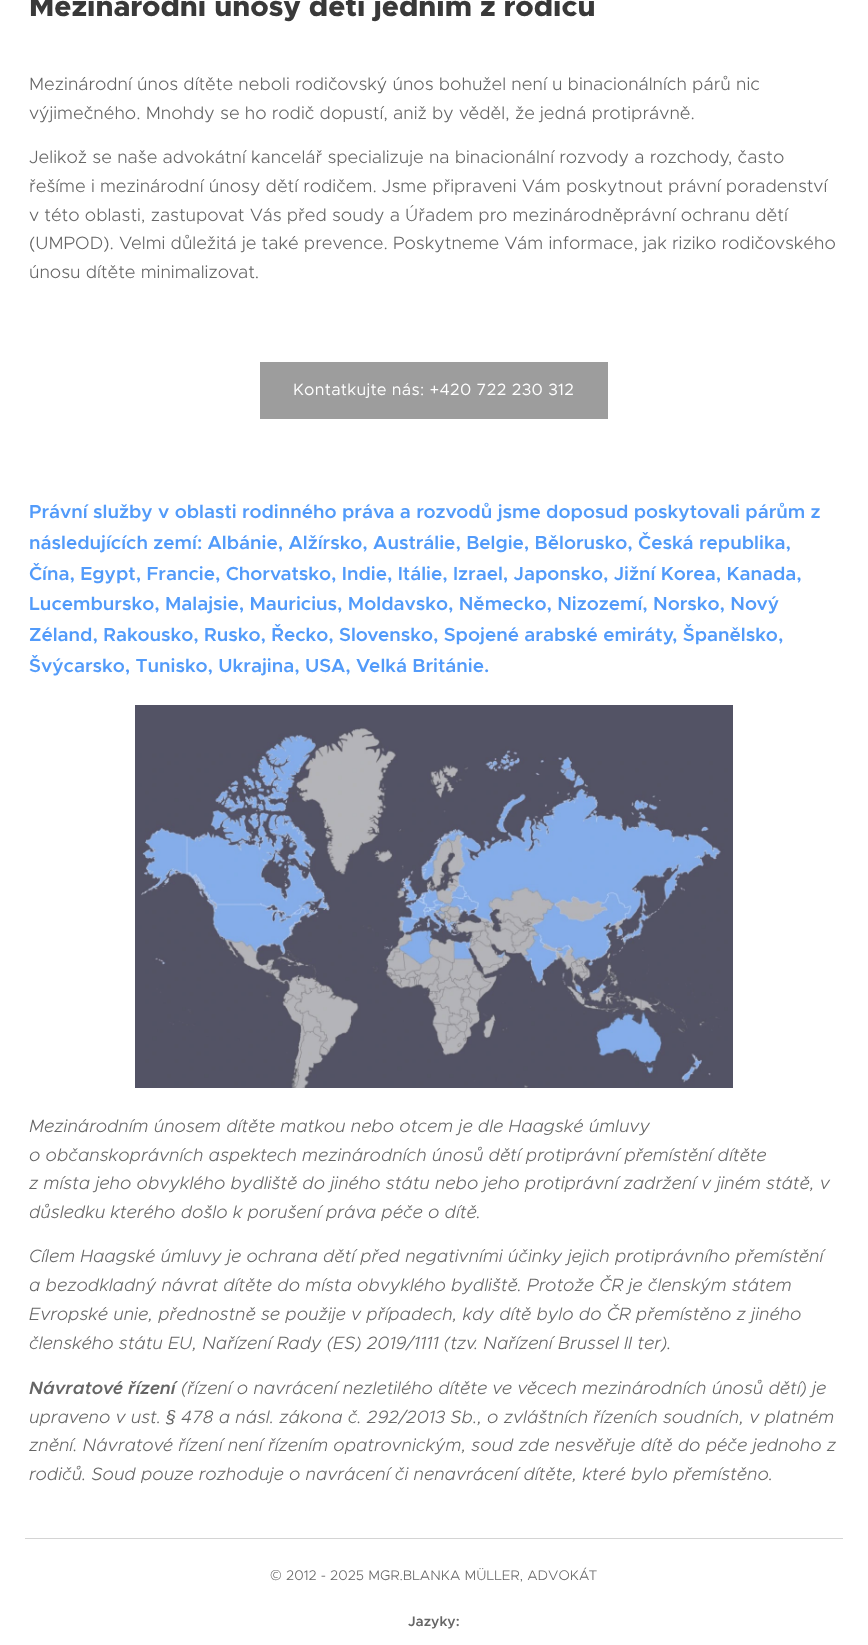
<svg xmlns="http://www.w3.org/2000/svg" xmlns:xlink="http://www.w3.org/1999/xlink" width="868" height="1645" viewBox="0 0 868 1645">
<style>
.cls-1{font:800 29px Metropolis;fill:#393939}
.cls-2{font:300 18px Metropolis;fill:#666666}
.cls-3{font:16.4px Metropolis;letter-spacing:0.3px;fill:#ffffff}
.cls-4{font:600 19px Metropolis;fill:#529bfa}
.cls-5{font:italic 300 18px Metropolis;fill:#666666}
.cls-6{font:italic 300 19px Metropolis;fill:#666666}
.cls-7{font:italic 600 18px Metropolis;fill:#666666}
.cls-8{font:italic 18px Liberation Sans;fill:#666666}
.cls-9{font:300 14px Noto Sans;fill:#666666}
.cls-10{font:300 14px Metropolis;fill:#666666}
.cls-11{font:600 14px Metropolis;fill:#666666}
</style>
<rect width="100%" height="100%" fill="#ffffff"/>
<rect fill="#9d9d9d" x="260" y="362" width="348" height="57"/>
<image xlink:href="image0.png" x="135" y="705" width="598" height="383"/>
<rect fill="#d4d4d4" x="25" y="1538" width="818" height="1"/>
<text class="cls-1" x="29" y="16">Mezinárodní únosy dětí jedním z rodičů</text>
<text class="cls-2"><tspan x="29" y="90">Mezinárodní únos dítěte neboli rodičovský únos bohužel není u binacionálních párů nic</tspan><tspan x="29" y="119">výjimečného. Mnohdy se ho rodič dopustí, aniž by věděl, že jedná protiprávně.</tspan></text>
<text class="cls-2"><tspan x="29" y="163">Jelikož se naše advokátní kancelář specializuje na binacionální rozvody a rozchody, často</tspan><tspan x="29" y="192">řešíme i mezinárodní únosy dětí rodičem. Jsme připraveni Vám poskytnout právní poradenství</tspan><tspan x="29" y="221">v této oblasti, zastupovat Vás před soudy a Úřadem pro mezinárodněprávní ochranu dětí</tspan><tspan x="29" y="249">(UMPOD). Velmi důležitá je také prevence. Poskytneme Vám informace, jak riziko rodičovského</tspan><tspan x="29" y="278">únosu dítěte minimalizovat.</tspan></text>
<text class="cls-3" x="293" y="395">Kontatkujte nás: +420 722 230 312</text>
<text class="cls-4"><tspan x="29" y="518">Právní služby v oblasti rodinného práva a rozvodů jsme doposud poskytovali párům z</tspan><tspan x="29" y="549">následujících zemí: Albánie, Alžírsko, Austrálie, Belgie, Bělorusko, Česká republika,</tspan><tspan x="29" y="580">Čína, Egypt, Francie, Chorvatsko, Indie, Itálie, Izrael, Japonsko, Jižní Korea, Kanada,</tspan><tspan x="29" y="610">Lucembursko, Malajsie, Mauricius, Moldavsko, Německo, Nizozemí, Norsko, Nový</tspan><tspan x="29" y="641">Zéland, Rakousko, Rusko, Řecko, Slovensko, Spojené arabské emiráty, Španělsko,</tspan><tspan x="29" y="672">Švýcarsko, Tunisko, Ukrajina, USA, Velká Británie.</tspan></text>
<text class="cls-5"><tspan x="29" y="1132">Mezinárodním únosem dítěte matkou nebo otcem je dle Haagské úmluvy</tspan><tspan x="29" y="1161">o občanskoprávních aspektech mezinárodních únosů dětí protiprávní přemístění dítěte</tspan><tspan x="29" y="1189">z místa jeho obvyklého bydliště do jiného státu nebo jeho protiprávní zadržení v jiném státě, v</tspan><tspan x="29" y="1218">důsledku kterého došlo k porušení práva péče o dítě.</tspan></text>
<text class="cls-5"><tspan x="29" y="1262">Cílem Haagské úmluvy je ochrana dětí před negativními účinky jejich protiprávního přemístění</tspan><tspan x="29" y="1291">a bezodkladný návrat dítěte do místa obvyklého bydliště. Protože ČR je členským státem</tspan><tspan x="29" y="1320">Evropské unie, přednostně se použije v případech, kdy dítě bylo do ČR přemístěno z jiného</tspan><tspan x="29" y="1349">členského státu EU, Nařízení Rady (ES) 2019/1111 (tzv. Nařízení Brussel II ter)</tspan></text>
<text class="cls-6" x="667" y="1349">.</text>
<text class="cls-7" x="29" y="1394">Návratové řízení</text>
<text class="cls-5" x="181" y="1394">(řízení o navrácení nezletilého dítěte ve věcech mezinárodních únosů dětí) je</text>
<text class="cls-5" x="29" y="1423">upraveno v ust.</text>
<text class="cls-8" x="166" y="1423">§</text>
<text class="cls-5" x="181" y="1423">478 a násl. zákona č. 292/2013 Sb., o zvláštních řízeních soudních, v platném</text>
<text class="cls-5"><tspan x="29" y="1451">znění. Návratové řízení není řízením opatrovnickým, soud zde nesvěřuje dítě do péče jednoho z</tspan><tspan x="29" y="1480">rodičů. Soud pouze rozhoduje o navrácení či nenavrácení dítěte, které bylo přemístěno.</tspan></text>
<text class="cls-9" x="270" y="1580">©</text>
<text class="cls-10" x="286" y="1580">2012 - 2025 MGR.BLANKA MÜLLER, ADVOKÁT</text>
<text class="cls-11" x="408" y="1626">Jazyky:</text>
</svg>
